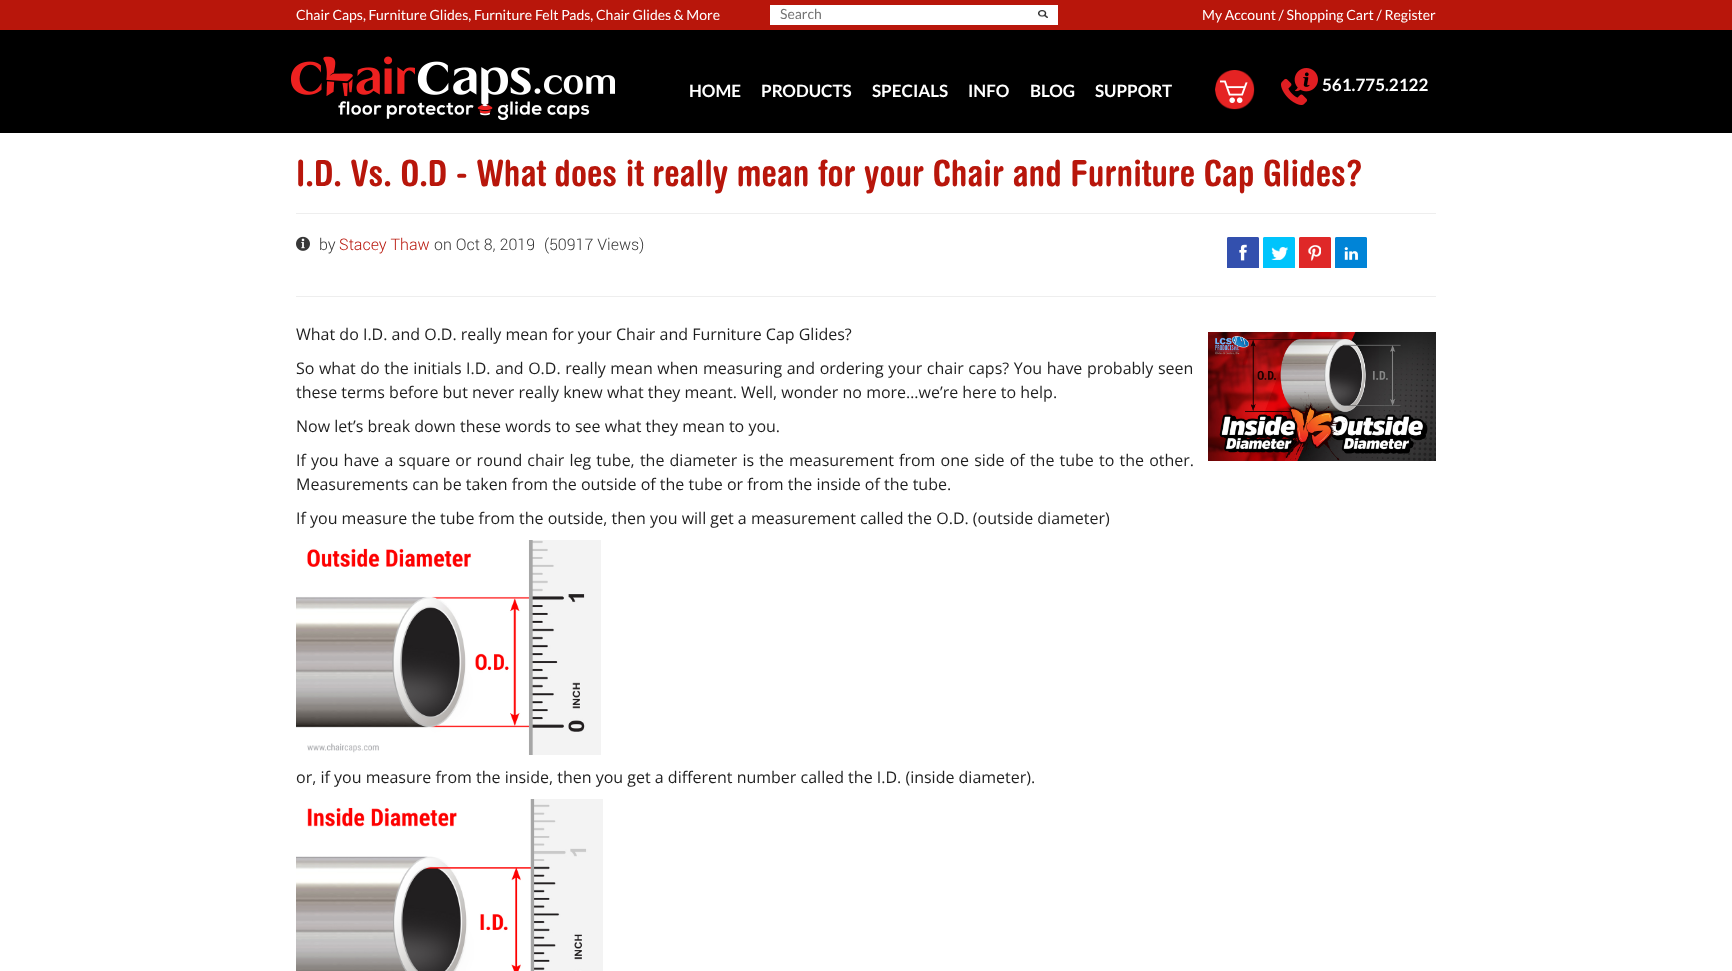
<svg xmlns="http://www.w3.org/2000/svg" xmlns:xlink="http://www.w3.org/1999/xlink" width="1732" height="971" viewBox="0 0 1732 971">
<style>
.cls-1{font:14px Lato;fill:#ffffff}
.cls-2{font:14px Lato;fill:#757575}
.cls-3{font:bold 17px Lato;fill:#ffffff}
.cls-4{font:bold 36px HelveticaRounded;fill:#b8160b}
.cls-5{font:300 16px Roboto;fill:#373737}
.cls-6{font:300 16px Roboto;fill:#b8160b}
.cls-7{font:16px Open Sans;fill:#1f1f1f}
</style>
<rect width="100%" height="100%" fill="#ffffff"/>
<rect fill="#000000" x="0" y="30" width="1732" height="103"/>
<rect fill="#b8160b" x="0" y="0" width="1732" height="30"/>
<rect fill="#ffffff" x="770" y="5" width="288" height="20"/>
<image xlink:href="image0.png" x="1038" y="10" width="10" height="8"/>
<image xlink:href="image1.png" x="291" y="56" width="324" height="64"/>
<image xlink:href="image2.png" x="1215" y="70" width="40" height="40"/>
<image xlink:href="image3.png" x="1220" y="80" width="28" height="23"/>
<image xlink:href="image4.png" x="1281" y="68" width="37" height="37"/>
<rect fill="#eeeeee" x="296" y="213" width="1140" height="1"/>
<image xlink:href="image5.png" x="296" y="236" width="14" height="15"/>
<image xlink:href="image6.png" x="1227" y="237" width="32" height="31"/>
<image xlink:href="image7.png" x="1263" y="237" width="32" height="31"/>
<image xlink:href="image8.png" x="1299" y="237" width="32" height="31"/>
<image xlink:href="image9.png" x="1335" y="237" width="32" height="31"/>
<rect fill="#eeeeee" x="296" y="296" width="1140" height="1"/>
<image xlink:href="image10.png" x="296" y="540" width="305" height="215"/>
<image xlink:href="image11.png" x="296" y="799" width="307" height="172"/>
<image xlink:href="image12.png" x="1208" y="332" width="228" height="129"/>
<text class="cls-1" x="296" y="20">Chair Caps, Furniture Glides, Furniture Felt Pads, Chair Glides &amp; More</text>
<text class="cls-2" x="780" y="19">Search</text>
<text class="cls-1" x="1202" y="20">My Account / Shopping Cart / Register</text>
<text class="cls-3" x="689" y="97">HOME</text>
<text class="cls-3" x="761" y="97">PRODUCTS</text>
<text class="cls-3" x="872" y="97">SPECIALS</text>
<text class="cls-3" x="968" y="97">INFO</text>
<text class="cls-3" x="1030" y="97">BLOG</text>
<text class="cls-3" x="1095" y="97">SUPPORT</text>
<text class="cls-3" x="1322" y="91">561.775.2122</text>
<text class="cls-4" x="296" y="186">I.D. Vs. O.D - What does it really mean for your Chair and Furniture Cap Glides?</text>
<text class="cls-5" x="319" y="250">by</text>
<text class="cls-6" x="339" y="250">Stacey Thaw</text>
<text class="cls-5" x="434" y="250">on Oct 8, 2019</text>
<text class="cls-5" x="544" y="250">(50917 Views)</text>
<text class="cls-7" x="296" y="340">What do I.D. and O.D. really mean for your Chair and Furniture Cap Glides?</text>
<text class="cls-7"><tspan x="296" y="374" word-spacing="0.4">So what do the initials I.D. and O.D. really mean when measuring and ordering your chair caps? You have probably seen</tspan><tspan x="296" y="398">these terms before but never really knew what they meant. Well, wonder no more…we’re here to help.</tspan></text>
<text class="cls-7" x="296" y="432">Now let’s break down these words to see what they mean to you.</text>
<text class="cls-7"><tspan x="296" y="466" word-spacing="1">If you have a square or round chair leg tube, the diameter is the measurement from one side of the tube to the other.</tspan><tspan x="296" y="490">Measurements can be taken from the outside of the tube or from the inside of the tube.</tspan></text>
<text class="cls-7" x="296" y="524">If you measure the tube from the outside, then you will get a measurement called the O.D. (outside diameter)</text>
<text class="cls-7" x="296" y="783">or, if you measure from the inside, then you get a different number called the I.D. (inside diameter).</text>
</svg>
